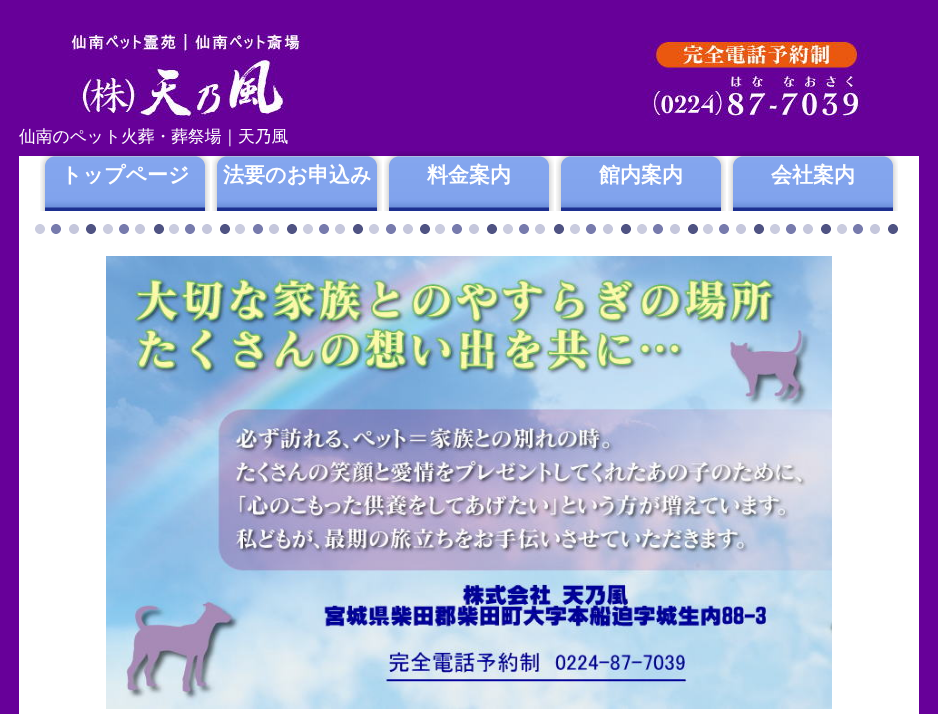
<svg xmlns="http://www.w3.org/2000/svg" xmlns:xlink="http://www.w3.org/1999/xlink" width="938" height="714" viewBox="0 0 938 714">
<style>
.cls-1{font:500 16.75px WenQuanYi Zen Hei;fill:#ffffff}
.cls-2{font:bold 21px WenQuanYi Zen Hei;fill:#ffffff}
</style>
<rect width="100%" height="100%" fill="#670099"/>
<image xlink:href="image0.png" x="69" y="33" width="800" height="88"/>
<rect fill="#ffffff" x="19" y="156" width="900" height="558"/>
<image xlink:href="image1.png" x="35" y="224" width="863" height="10"/>
<image xlink:href="image2.png" x="40" y="151" width="170" height="60"/>
<image xlink:href="image2.png" x="212" y="151" width="170" height="60"/>
<image xlink:href="image2.png" x="384" y="151" width="170" height="60"/>
<image xlink:href="image2.png" x="556" y="151" width="170" height="60"/>
<image xlink:href="image2.png" x="728" y="151" width="170" height="60"/>
<image xlink:href="image3.png" x="106" y="256" width="726" height="453"/>
<text class="cls-1" x="19" y="142">仙南のペット火葬・葬祭場｜天乃風</text>
<text class="cls-2" x="61" y="182">トップページ</text>
<text class="cls-2" x="223" y="182">法要のお申込み</text>
<text class="cls-2" x="427" y="182">料金案内</text>
<text class="cls-2" x="599" y="182">館内案内</text>
<text class="cls-2" x="771" y="182">会社案内</text>
</svg>
